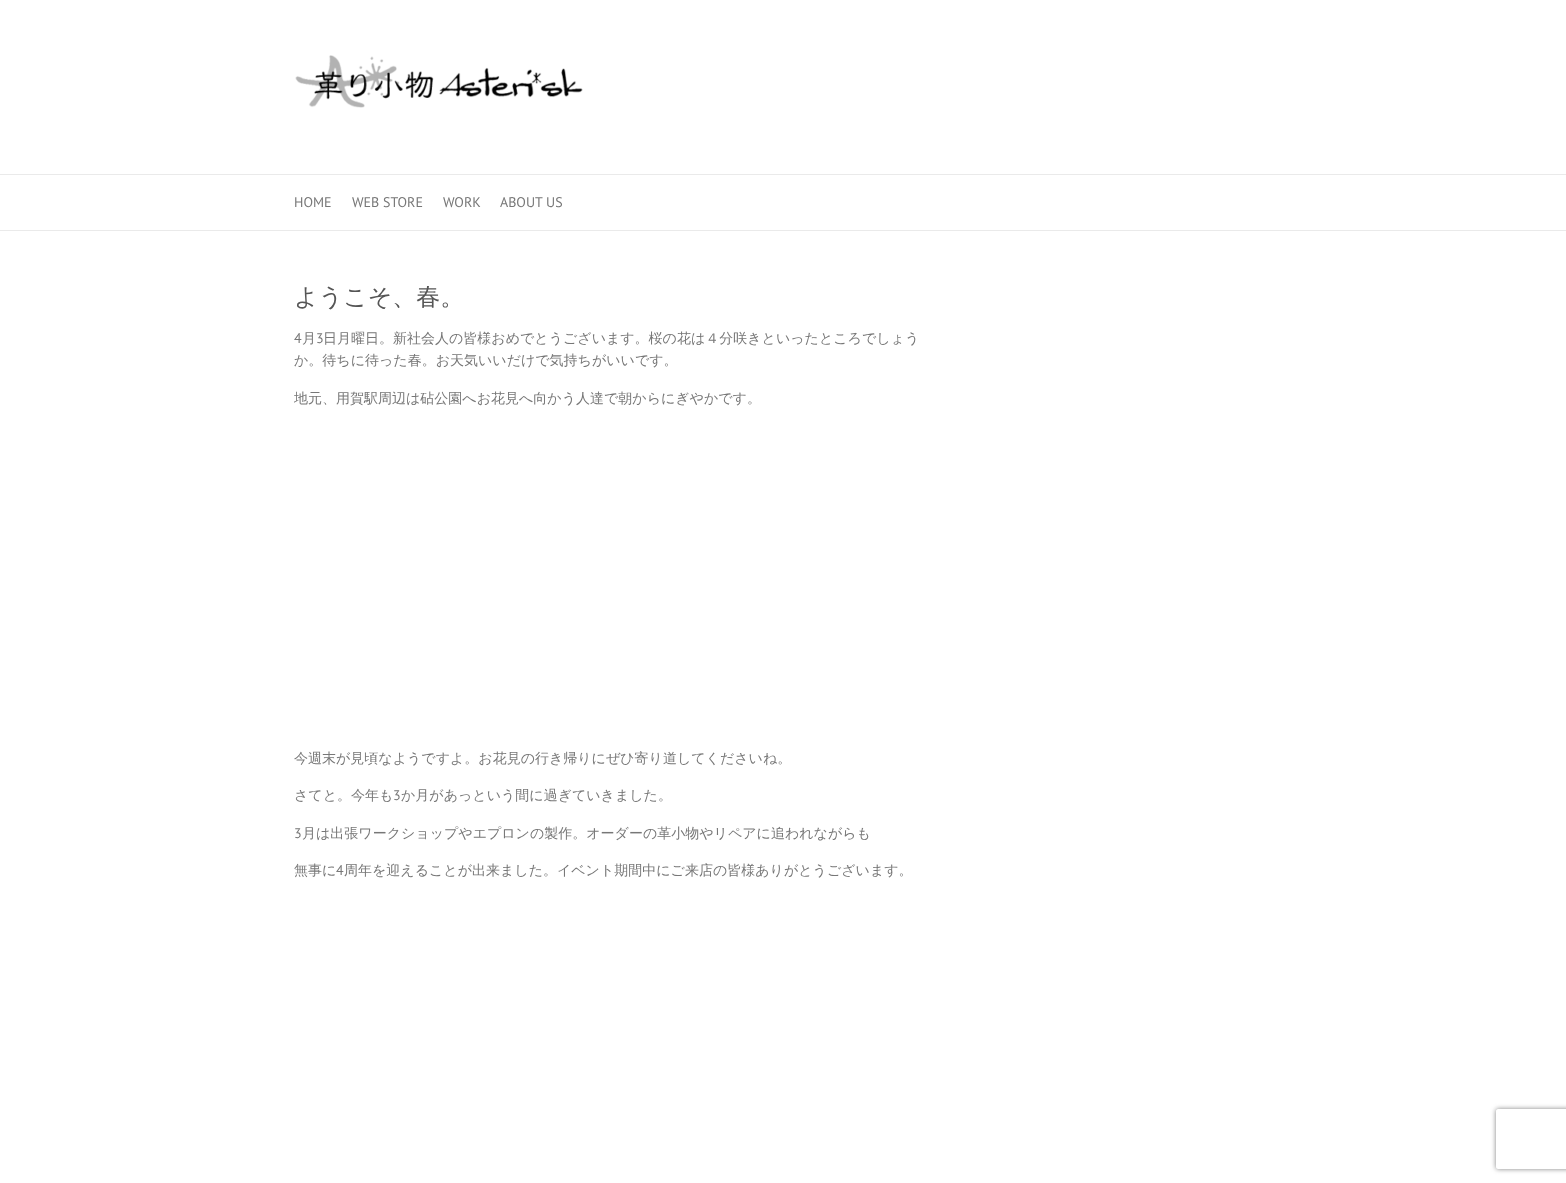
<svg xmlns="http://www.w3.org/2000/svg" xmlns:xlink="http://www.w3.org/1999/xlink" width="1566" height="1183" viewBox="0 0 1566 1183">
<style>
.cls-1{font:14px PT Sans;fill:#777777}
.cls-2{font:500 24px WenQuanYi Zen Hei;fill:#555555}
.cls-3{font:500 14px WenQuanYi Zen Hei;fill:#777777}
</style>
<defs>
<clipPath id="clip1"><path d="M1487 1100H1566V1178H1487ZM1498 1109H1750C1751 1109 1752 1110 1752 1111V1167C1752 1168 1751 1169 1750 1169H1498C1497 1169 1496 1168 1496 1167V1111C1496 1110 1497 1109 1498 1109Z" clip-rule="evenodd"/></clipPath>
</defs>
<rect width="100%" height="100%" fill="#ffffff"/>
<image xlink:href="image0.png" x="295" y="55" width="288" height="53"/>
<rect fill="#eaeaea" x="0" y="174" width="1566" height="1"/>
<rect fill="#eaeaea" x="0" y="230" width="1566" height="1"/>
<g clip-path="url(#clip1)">
<rect fill="#808080" filter="blur(2.5px)" x="1496" y="1109" width="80" height="60" rx="2"/>
</g>
<text class="cls-1" x="294" y="207">HOME</text>
<text class="cls-1" x="352" y="207">WEB STORE</text>
<text class="cls-1" x="443" y="207">WORK</text>
<text class="cls-1" x="500" y="207">ABOUT US</text>
<text class="cls-2" x="294" y="305">ようこそ、春。</text>
<text class="cls-1" x="294" y="343">4</text>
<text class="cls-3" x="302" y="343">月</text>
<text class="cls-1" x="316" y="343">3</text>
<text class="cls-3" x="323" y="343">日月曜日。新社会人の皆様おめでとうございます。桜の花は４分咲きといったところでしょう</text>
<text class="cls-3" x="294" y="365">か。待ちに待った春。お天気いいだけで気持ちがいいです。</text>
<text class="cls-3" x="294" y="403">地元、用賀駅周辺は砧公園へお花見へ向かう人達で朝からにぎやかです。</text>
<text class="cls-3" x="294" y="763">今週末が見頃なようですよ。お花見の行き帰りにぜひ寄り道してくださいね。</text>
<text class="cls-3" x="294" y="800">さてと。今年も</text>
<text class="cls-1" x="393" y="800">3</text>
<text class="cls-3" x="401" y="800">か月があっという間に過ぎていきました。</text>
<text class="cls-1" x="294" y="838">3</text>
<text class="cls-3" x="302" y="838">月は出張ワークショップやエプロンの製作。オーダーの革小物やリペアに追われながらも</text>
<text class="cls-3" x="294" y="875">無事に</text>
<text class="cls-1" x="336" y="875">4</text>
<text class="cls-3" x="344" y="875">周年を迎えることが出来ました。イベント期間中にご来店の皆様ありがとうございます。</text>
</svg>
